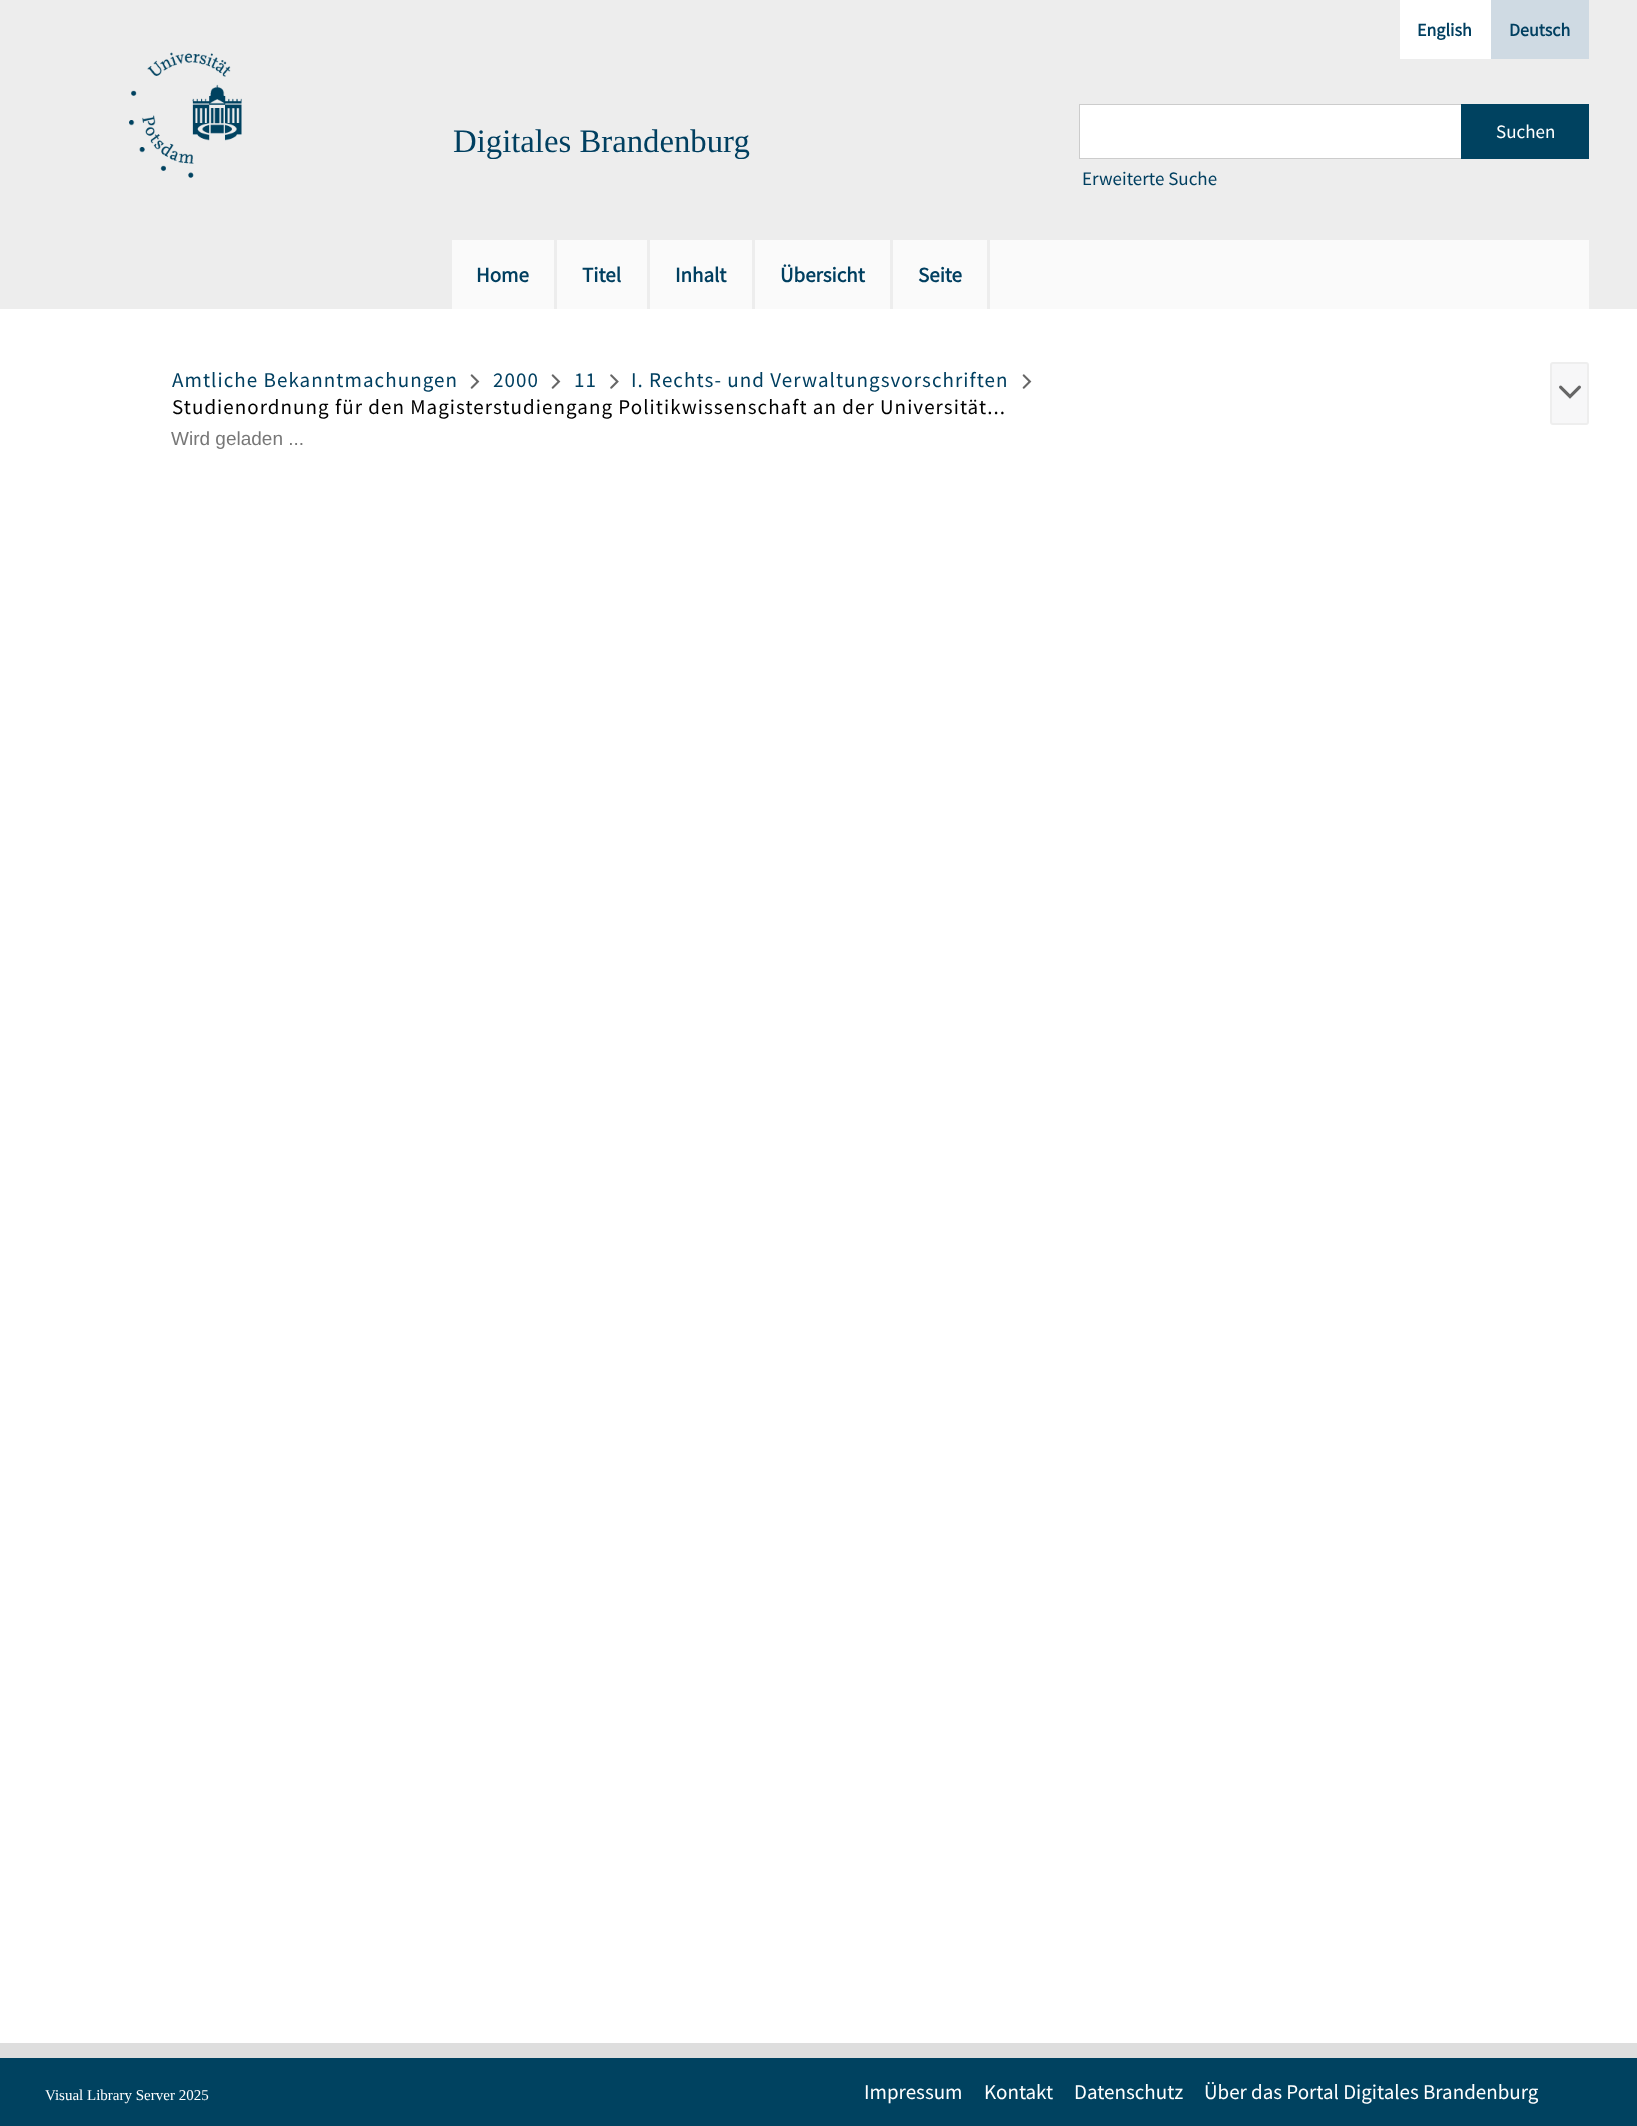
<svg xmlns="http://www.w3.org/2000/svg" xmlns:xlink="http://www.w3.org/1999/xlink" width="1637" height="2126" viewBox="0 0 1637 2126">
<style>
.cls-1{font:32.75px Liberation Serif;fill:#003f60}
.cls-2{font:bold 18px Source Sans Pro;fill:#003f60}
.cls-3{font:19px Source Sans Pro;fill:#ffffff}
.cls-4{font:19px Source Sans Pro;fill:#003f60}
.cls-5{font:bold 21px Source Sans Pro;fill:#003f60}
.cls-6{font:21px Source Sans Pro;letter-spacing:1.05px;fill:#003f60}
.cls-7{font:21px Source Sans Pro;letter-spacing:1.05px;fill:#000000}
.cls-8{font:19px Liberation Sans;fill:#777777}
.cls-9{font:15px Liberation Serif;fill:#ffffff}
.cls-10{font:21px Source Sans Pro;fill:#ffffff}
</style>
<rect width="100%" height="100%" fill="#ffffff"/>
<rect fill="#ededed" x="0" y="0" width="1637" height="309"/>
<image xlink:href="image0.png" x="129" y="52" width="113" height="126"/>
<rect fill="#ffffff" x="1400" y="0" width="91" height="59"/>
<rect fill="#cfdae3" x="1491" y="0" width="98" height="59"/>
<rect fill="none" stroke="#cccccc" stroke-width="2" x="1080" y="105" width="508" height="53"/>
<rect fill="#ffffff" x="1080" y="105" width="381" height="53"/>
<rect fill="#004260" x="1461" y="104" width="128" height="55"/>
<rect fill="#fafafa" x="452" y="240" width="1137" height="69"/>
<rect fill="#ededed" x="554" y="240" width="3" height="69"/>
<rect fill="#ededed" x="647" y="240" width="3" height="69"/>
<rect fill="#ededed" x="752" y="240" width="3" height="69"/>
<rect fill="#ededed" x="890" y="240" width="3" height="69"/>
<rect fill="#ededed" x="987" y="240" width="3" height="69"/>
<image xlink:href="image1.png" x="470" y="374" width="10" height="15"/>
<image xlink:href="image1.png" x="551" y="374" width="10" height="15"/>
<image xlink:href="image2.png" x="610" y="374" width="9" height="15"/>
<image xlink:href="image1.png" x="1022" y="374" width="10" height="15"/>
<rect fill="#f7f7f8" stroke="#eeeeee" stroke-width="2" x="1551" y="363" width="37" height="61" rx="2"/>
<image xlink:href="image3.png" x="1559" y="385" width="22" height="14"/>
<rect fill="#004260" x="0" y="2058" width="1637" height="68"/>
<rect fill="#dedede" x="0" y="2043" width="1637" height="15"/>
<text class="cls-1" x="453" y="152">Digitales Brandenburg</text>
<text class="cls-2" x="1417" y="36">English</text>
<text class="cls-2" x="1509" y="36">Deutsch</text>
<text class="cls-3" x="1496" y="138">Suchen</text>
<text class="cls-4" x="1082" y="185">Erweiterte Suche</text>
<text class="cls-5" x="476" y="282">Home</text>
<text class="cls-5" x="582" y="282">Titel</text>
<text class="cls-5" x="675" y="282">Inhalt</text>
<text class="cls-5" x="780" y="282">Übersicht</text>
<text class="cls-5" x="918" y="282">Seite</text>
<text class="cls-6" x="172" y="387">Amtliche Bekanntmachungen</text>
<text class="cls-6" x="493" y="387">2000</text>
<text class="cls-6" x="574" y="387">11</text>
<text class="cls-6" x="631" y="387">I. Rechts- und Verwaltungsvorschriften</text>
<text class="cls-7" x="172" y="414">Studienordnung für den Magisterstudiengang Politikwissenschaft an der Universität...</text>
<text class="cls-8" x="171" y="445">Wird geladen ...</text>
<text class="cls-9" x="45" y="2100">Visual Library Server 2025</text>
<text class="cls-10" x="864" y="2099">Impressum</text>
<text class="cls-10" x="984" y="2099">Kontakt</text>
<text class="cls-10" x="1074" y="2099">Datenschutz</text>
<text class="cls-10" x="1204" y="2099">Über das Portal Digitales Brandenburg</text>
</svg>
